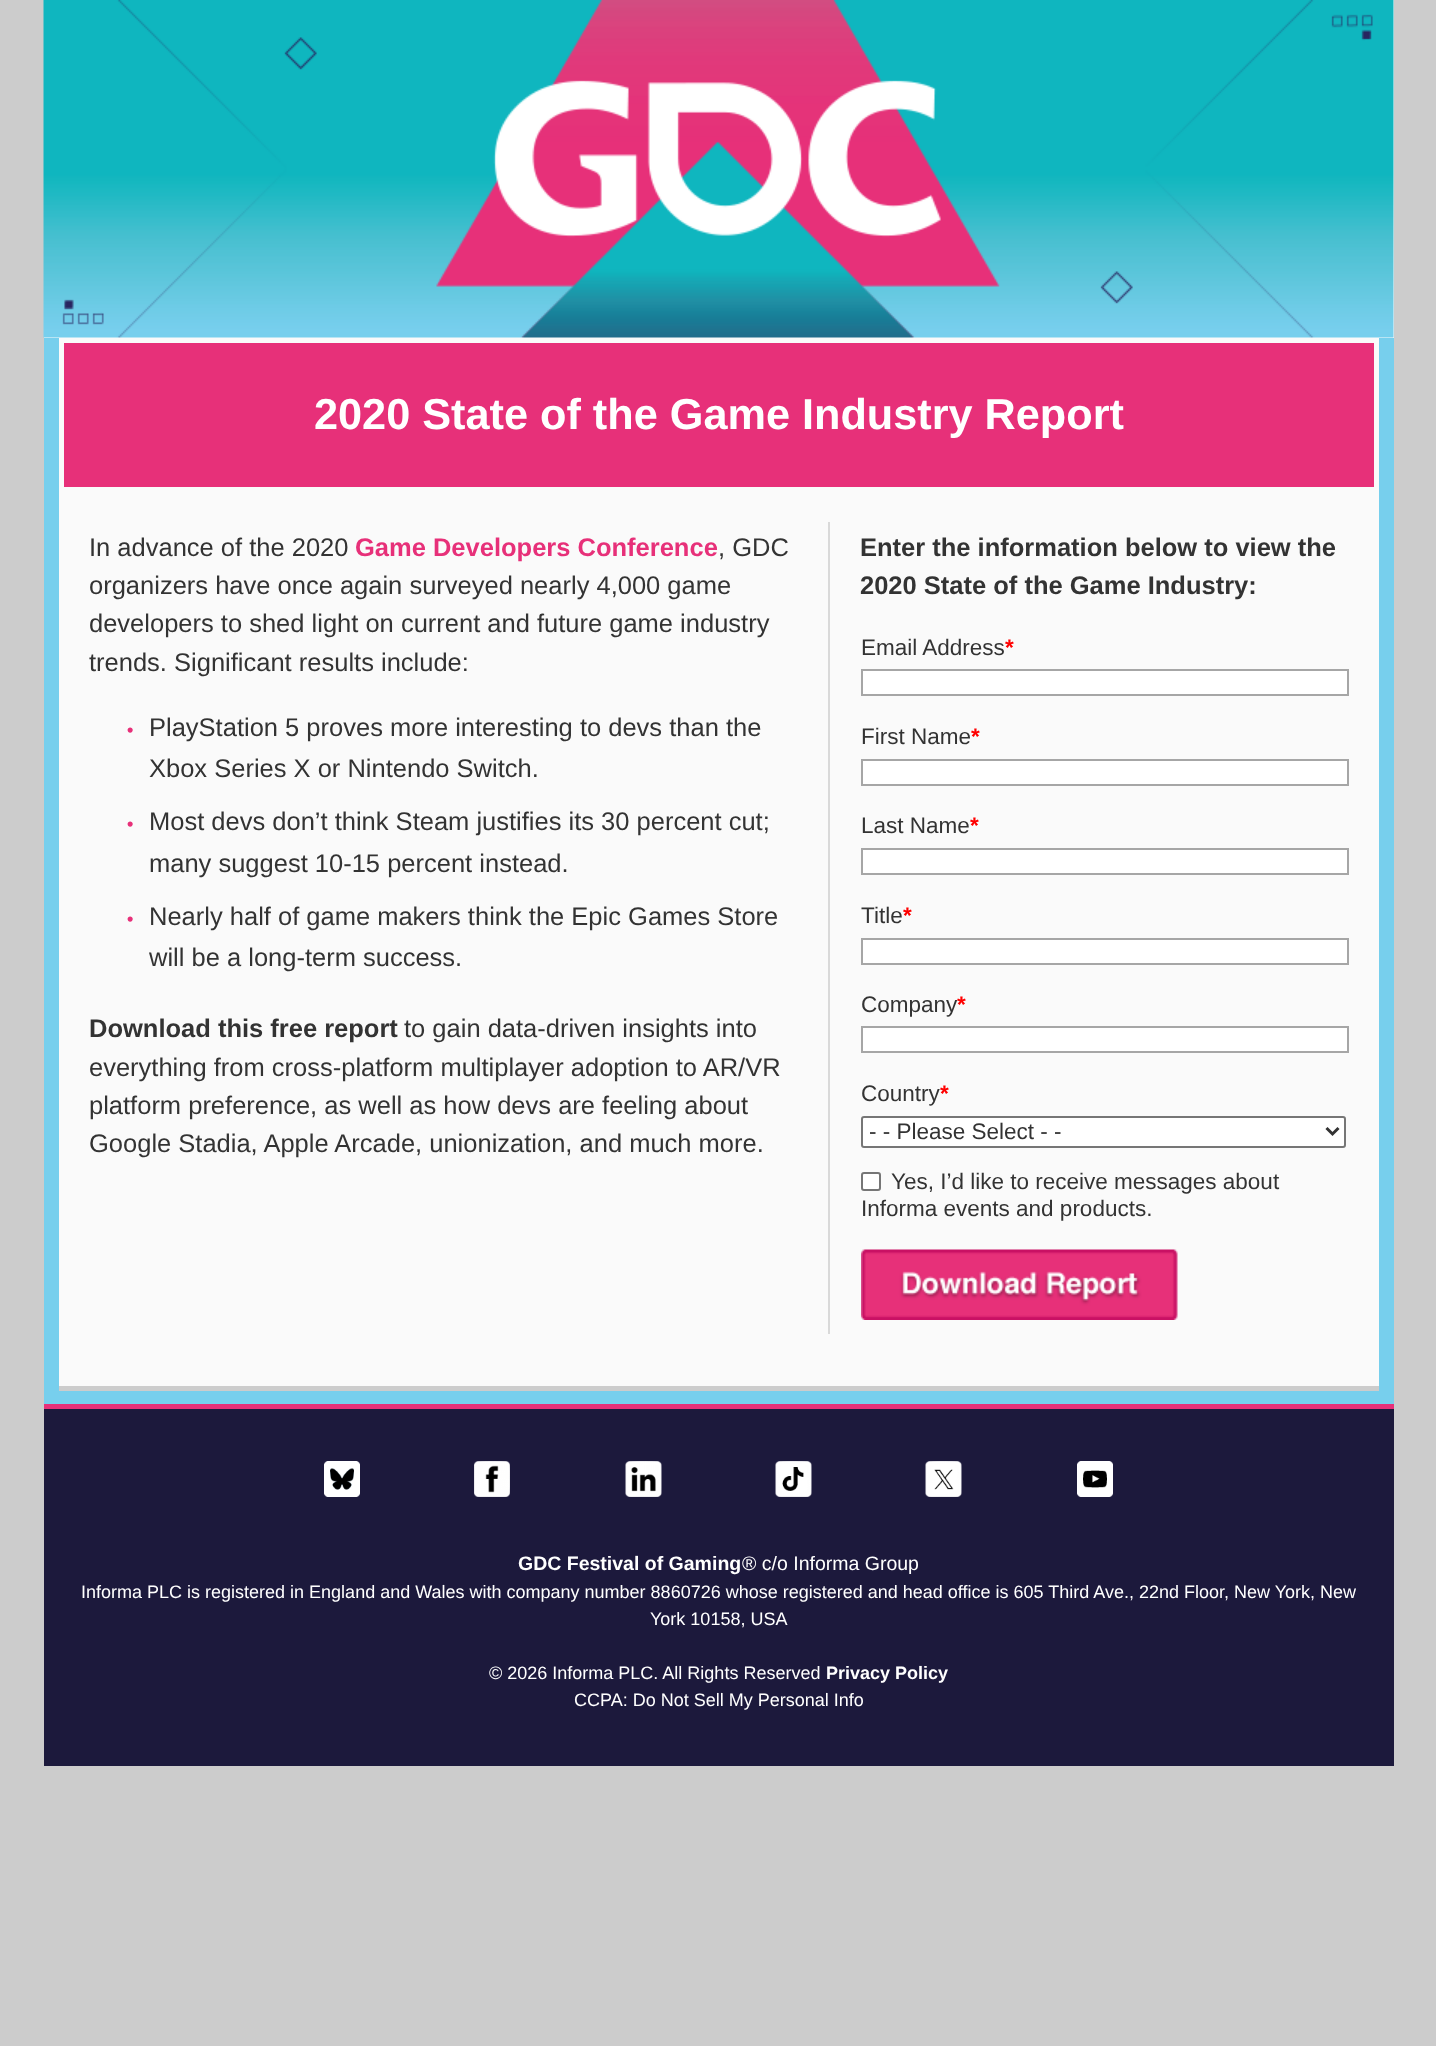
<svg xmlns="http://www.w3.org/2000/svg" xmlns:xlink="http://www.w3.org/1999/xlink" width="1436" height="2046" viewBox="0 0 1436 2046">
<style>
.cls-1{font:bold 43.25px Liberation Sans;fill:#ffffff}
.cls-2{font:25.5px Liberation Sans;fill:#333333}
.cls-3{font:bold 25.5px Liberation Sans;fill:#e73079}
.cls-4{font:bold 18px Liberation Sans;fill:#e73079}
.cls-5{font:bold 25.5px Liberation Sans;fill:#333333}
.cls-6{font:22.5px Liberation Sans;fill:#333333}
.cls-7{font:bold 22.5px Liberation Sans;fill:#ff0000}
.cls-8{font:bold 19.5px Liberation Sans;fill:#ffffff}
.cls-9{font:19.5px Liberation Sans;fill:#ffffff}
.cls-10{font:18px Liberation Sans;fill:#ffffff}
.cls-11{font:bold 18px Liberation Sans;fill:#ffffff}
</style>
<rect width="100%" height="100%" fill="#cccccc"/>
<rect fill="#fafafa" x="44" y="0" width="1350" height="338"/>
<image xlink:href="image0.png" x="43" y="0" width="1351" height="338"/>
<rect fill="#77cfed" x="1379" y="338" width="15" height="1053"/>
<rect fill="#77cfed" x="44" y="338" width="15" height="1053"/>
<rect fill="#e73079" stroke="#fafafa" stroke-width="5" x="61.5" y="340.5" width="1315" height="149"/>
<rect fill="#fafafa" x="59" y="492" width="1320" height="894"/>
<rect fill="#d9d9d9" x="828" y="522" width="2" height="812"/>
<rect fill="#ffffff" stroke="#a6a6a6" stroke-width="2" x="862" y="670" width="486" height="25"/>
<rect fill="#ffffff" stroke="#a6a6a6" stroke-width="2" x="862" y="760" width="486" height="25"/>
<rect fill="#ffffff" stroke="#a6a6a6" stroke-width="2" x="862" y="849" width="486" height="25"/>
<rect fill="#ffffff" stroke="#a6a6a6" stroke-width="2" x="862" y="939" width="486" height="25"/>
<rect fill="#ffffff" stroke="#a6a6a6" stroke-width="2" x="862" y="1027" width="486" height="25"/>
<rect fill="#ffffff" stroke="#767676" stroke-width="2" x="862" y="1117" width="483" height="30" rx="2"/>
<path fill="none" stroke="#333333" stroke-width="3" d="M1326.5 1128L1332.5 1134L1338.5 1128"/>
<rect fill="#ffffff" stroke="#767676" stroke-width="2" x="862" y="1173" width="18" height="17" rx="2"/>
<image xlink:href="image1.png" x="861" y="1249" width="317" height="71"/>
<rect fill="#77cfed" x="44" y="1391" width="1350" height="13"/>
<rect fill="#e73079" x="44" y="1404" width="1350" height="5"/>
<rect fill="#1c193c" x="44" y="1409" width="1350" height="357"/>
<image xlink:href="image2.png" x="324" y="1461" width="36" height="36"/>
<image xlink:href="image3.png" x="474" y="1461" width="36" height="36"/>
<image xlink:href="image4.png" x="625" y="1461" width="37" height="36"/>
<image xlink:href="image5.png" x="775" y="1461" width="37" height="36"/>
<image xlink:href="image6.png" x="925" y="1461" width="37" height="36"/>
<image xlink:href="image7.png" x="1077" y="1461" width="36" height="36"/>
<text class="cls-1" x="314" y="429">2020 State of the Game Industry Report</text>
<text class="cls-2" x="89" y="556">In advance of the 2020</text>
<text class="cls-3" x="355" y="556">Game Developers Conference</text>
<text class="cls-2" x="718" y="556">, GDC</text>
<text class="cls-2"><tspan x="89" y="594">organizers have once again surveyed nearly 4,000 game</tspan><tspan x="89" y="632">developers to shed light on current and future game industry</tspan><tspan x="89" y="671">trends. Significant results include:</tspan></text>
<text class="cls-4" x="127" y="736">•</text>
<text class="cls-2"><tspan x="149" y="736">PlayStation 5 proves more interesting to devs than the</tspan><tspan x="149" y="777">Xbox Series X or Nintendo Switch.</tspan></text>
<text class="cls-4" x="127" y="830">•</text>
<text class="cls-2"><tspan x="149" y="830">Most devs don’t think Steam justifies its 30 percent cut;</tspan><tspan x="149" y="872">many suggest 10-15 percent instead.</tspan></text>
<text class="cls-4" x="127" y="925">•</text>
<text class="cls-2"><tspan x="149" y="925">Nearly half of game makers think the Epic Games Store</tspan><tspan x="149" y="966">will be a long-term success.</tspan></text>
<text class="cls-5" x="89" y="1037">Download this free report</text>
<text class="cls-2" x="404" y="1037">to gain data-driven insights into</text>
<text class="cls-2"><tspan x="89" y="1076">everything from cross-platform multiplayer adoption to AR/VR</tspan><tspan x="89" y="1114">platform preference, as well as how devs are feeling about</tspan><tspan x="89" y="1152">Google Stadia, Apple Arcade, unionization, and much more.</tspan></text>
<text class="cls-5"><tspan x="860" y="556">Enter the information below to view the</tspan><tspan x="860" y="594">2020 State of the Game Industry:</tspan></text>
<text class="cls-6" x="861" y="655">Email Address</text>
<text class="cls-7" x="1005" y="655">*</text>
<text class="cls-6" x="861" y="744">First Name</text>
<text class="cls-7" x="971" y="744">*</text>
<text class="cls-6" x="861" y="833">Last Name</text>
<text class="cls-7" x="970" y="833">*</text>
<text class="cls-6" x="861" y="923">Title</text>
<text class="cls-7" x="903" y="923">*</text>
<text class="cls-6" x="861" y="1012">Company</text>
<text class="cls-7" x="957" y="1012">*</text>
<text class="cls-6" x="861" y="1101">Country</text>
<text class="cls-7" x="940" y="1101">*</text>
<text class="cls-6" x="869" y="1139">- - Please Select - -</text>
<text class="cls-6" x="891" y="1189">Yes, I’d like to receive messages about</text>
<text class="cls-6" x="861" y="1216">Informa events and products.</text>
<text class="cls-8" x="518" y="1570">GDC Festival of Gaming</text>
<text class="cls-9" x="742" y="1570">® c/o Informa Group</text>
<text class="cls-10" x="81" y="1598">Informa PLC is registered in England and Wales with company number 8860726 whose registered and head office is 605 Third Ave., 22nd Floor, New York, New</text>
<text class="cls-10" x="650" y="1625">York 10158, USA</text>
<text class="cls-10" x="489" y="1679">© 2026 Informa PLC. All Rights Reserved</text>
<text class="cls-11" x="826" y="1679">Privacy Policy</text>
<text class="cls-10" x="574" y="1706">CCPA: Do Not Sell My Personal Info</text>
</svg>
